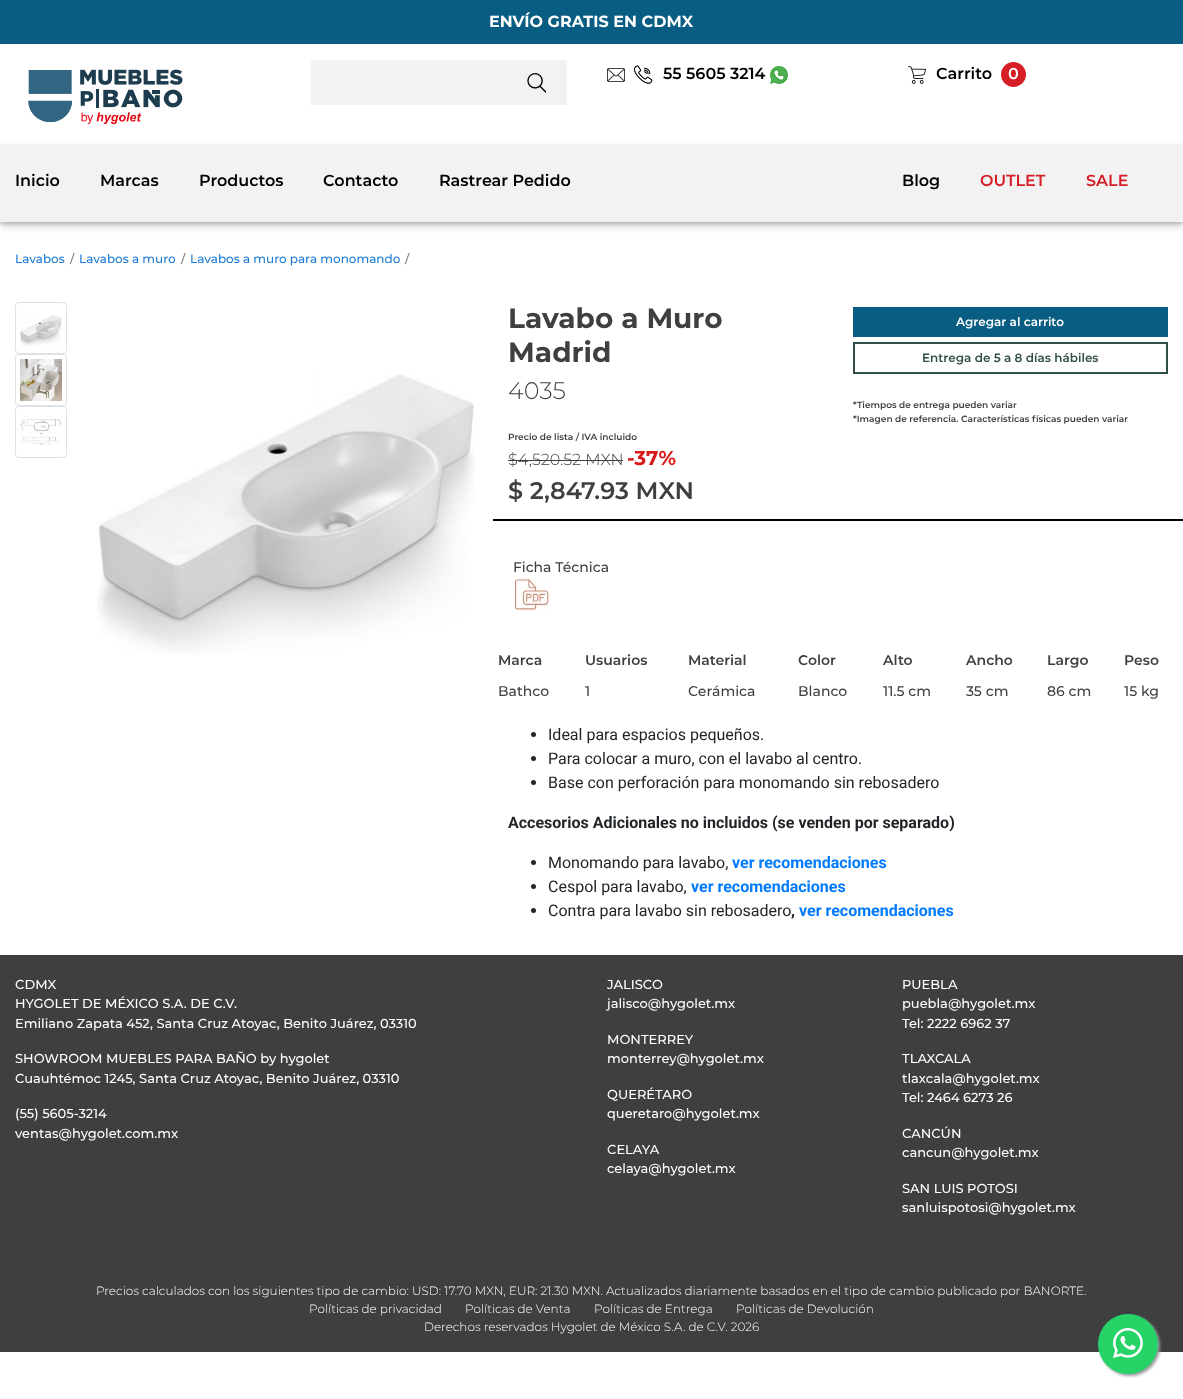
<svg xmlns="http://www.w3.org/2000/svg" xmlns:xlink="http://www.w3.org/1999/xlink" width="1183" height="1399" viewBox="0 0 1183 1399">
<style>
.cls-1{font:bold 16px Montserrat;fill:#ffffff}
.cls-2{font:600 16px Montserrat;fill:#000000}
.cls-3{font:600 16px Montserrat;fill:#ffffff}
.cls-4{font:600 16px Montserrat;fill:#d61e26}
.cls-5{font:500 12px Montserrat;fill:#1c7cd5}
.cls-6{font:500 12px Montserrat;fill:#777777}
.cls-7{font:bold 28px Montserrat;fill:#3f3f3f}
.cls-8{font:300 24px Montserrat;fill:#3f3f3f}
.cls-9{font:600 9px Montserrat;fill:#3f3f3f}
.cls-10{font:300 16px Montserrat;fill:#3f3f3f}
.cls-11{font:bold 20px Montserrat;fill:#d81919}
.cls-12{font:600 24px Montserrat;fill:#3f3f3f}
.cls-13{font:600 12px Montserrat;fill:#ffffff}
.cls-14{font:600 12px Montserrat;fill:#315044}
.cls-15{font:500 14px Montserrat;fill:#3f3f3f}
.cls-16{font:600 14px Montserrat;fill:#3f3f3f}
.cls-17{font:16px Roboto;fill:#212529}
.cls-18{font:bold 16px Roboto;fill:#212529}
.cls-19{font:bold 16px Roboto;fill:#007bff}
.cls-20{font:500 13px Montserrat;fill:#ffffff}
.cls-21{font:300 12px Montserrat;fill:#ffffff}
</style>
<rect width="100%" height="100%" fill="#ffffff"/>
<rect fill="#095d82" x="0" y="0" width="1183" height="44"/>
<image xlink:href="image0.png" x="28" y="69" width="155" height="56"/>
<rect fill="#f2f2f2" stroke="#f2f2f2" x="311.5" y="60.5" width="195" height="44"/>
<rect fill="#f2f2f2" x="507" y="60" width="60" height="45"/>
<image xlink:href="image1.png" x="527" y="73" width="19" height="20"/>
<image xlink:href="image2.png" x="607" y="68" width="18" height="14"/>
<image xlink:href="image3.png" x="634" y="65" width="19" height="19"/>
<image xlink:href="image4.png" x="770" y="66" width="18" height="18"/>
<image xlink:href="image5.png" x="908" y="66" width="18" height="18"/>
<circle fill="#d61e26" cx="1013.5" cy="74.5" r="12.5"/>
<rect fill="#000000" fill-opacity="0.19" filter="blur(5px)" x="0" y="149" width="1183" height="76"/>
<rect fill="#000000" fill-opacity="0.2" filter="blur(2px)" x="0" y="148" width="1183" height="76"/>
<rect fill="#f2f2f2" x="0" y="146" width="1183" height="76"/>
<rect fill="none" stroke="#dee2e6" x="15.5" y="302.5" width="51" height="51" rx="3.5"/>
<image xlink:href="image6.png" x="20" y="315" width="42" height="31"/>
<rect fill="none" stroke="#dee2e6" x="15.5" y="354.5" width="51" height="51" rx="3.5"/>
<image xlink:href="image7.png" x="20" y="359" width="42" height="42"/>
<rect fill="none" stroke="#dee2e6" x="15.5" y="406.5" width="51" height="51" rx="3.5"/>
<image xlink:href="image8.png" x="20" y="419" width="42" height="26"/>
<image xlink:href="image9.png" x="97" y="374" width="378" height="280"/>
<rect fill="#000000" x="493" y="519" width="690" height="2"/>
<rect fill="#3f3f3f" x="508" y="460" width="115" height="1"/>
<rect fill="#095d82" x="853" y="307" width="315" height="30"/>
<rect fill="none" stroke="#315044" stroke-width="2" x="854" y="343" width="313" height="30"/>
<image xlink:href="image10.png" x="513" y="578" width="38" height="33"/>
<circle fill="#212529" cx="533.5" cy="734.5" r="2.5"/>
<circle fill="#212529" cx="533.5" cy="758.5" r="2.5"/>
<circle fill="#212529" cx="533.5" cy="782.5" r="2.5"/>
<circle fill="#212529" cx="533.5" cy="862.5" r="2.5"/>
<circle fill="#212529" cx="533.5" cy="886.5" r="2.5"/>
<circle fill="#212529" cx="533.5" cy="910.5" r="2.5"/>
<rect fill="#3f3f3f" x="0" y="955" width="1183" height="397"/>
<rect fill="#999999" filter="blur(1.5px)" x="1100" y="1316" width="60" height="60" rx="30"/>
<circle fill="#25d366" cx="1128" cy="1344" r="30"/>
<image xlink:href="image11.png" x="1113" y="1328" width="30" height="30"/>
<text class="cls-1" x="489" y="27">ENVÍO GRATIS EN CDMX</text>
<text class="cls-2" x="663" y="79">55 5605 3214</text>
<text class="cls-2" x="936" y="79">Carrito</text>
<text class="cls-3" x="1008" y="79">0</text>
<text class="cls-2" x="15" y="186">Inicio</text>
<text class="cls-2" x="100" y="186">Marcas</text>
<text class="cls-2" x="199" y="186">Productos</text>
<text class="cls-2" x="323" y="186">Contacto</text>
<text class="cls-2" x="439" y="186">Rastrear Pedido</text>
<text class="cls-2" x="902" y="186">Blog</text>
<text class="cls-4" x="980" y="186">OUTLET</text>
<text class="cls-4" x="1086" y="186">SALE</text>
<text class="cls-5" x="15" y="263">Lavabos</text>
<text class="cls-6" x="70" y="263">/</text>
<text class="cls-5" x="79" y="263">Lavabos a muro</text>
<text class="cls-6" x="181" y="263">/</text>
<text class="cls-5" x="190" y="263">Lavabos a muro para monomando</text>
<text class="cls-6" x="405" y="263">/</text>
<text class="cls-7"><tspan x="508" y="328">Lavabo a Muro</tspan><tspan x="508" y="362">Madrid</tspan></text>
<text class="cls-8" x="508" y="399">4035</text>
<text class="cls-9" x="508" y="440">Precio de lista / IVA incluido</text>
<text class="cls-10" x="508" y="465">$4,520.52 MXN</text>
<text class="cls-11" x="627" y="465">-37%</text>
<text class="cls-12" x="508" y="499">$ 2,847.93 MXN</text>
<text class="cls-13" x="956" y="326">Agregar al carrito</text>
<text class="cls-14" x="922" y="362">Entrega de 5 a 8 días hábiles</text>
<text class="cls-9"><tspan x="853" y="408">*Tiempos de entrega pueden variar</tspan><tspan x="853" y="422">*Imagen de referencia. Características físicas pueden variar</tspan></text>
<text class="cls-15" x="513" y="572">Ficha Técnica</text>
<text class="cls-16" x="498" y="665">Marca</text>
<text class="cls-16" x="585" y="665">Usuarios</text>
<text class="cls-16" x="688" y="665">Material</text>
<text class="cls-16" x="798" y="665">Color</text>
<text class="cls-16" x="883" y="665">Alto</text>
<text class="cls-16" x="966" y="665">Ancho</text>
<text class="cls-16" x="1047" y="665">Largo</text>
<text class="cls-16" x="1124" y="665">Peso</text>
<text class="cls-15" x="498" y="696">Bathco</text>
<text class="cls-15" x="585" y="696">1</text>
<text class="cls-15" x="688" y="696">Cerámica</text>
<text class="cls-15" x="798" y="696">Blanco</text>
<text class="cls-15" x="883" y="696">11.5 cm</text>
<text class="cls-15" x="966" y="696">35 cm</text>
<text class="cls-15" x="1047" y="696">86 cm</text>
<text class="cls-15" x="1124" y="696">15 kg</text>
<text class="cls-17"><tspan x="548" y="740">Ideal para espacios pequeños.</tspan><tspan x="548" y="764">Para colocar a muro, con el lavabo al centro.</tspan><tspan x="548" y="788">Base con perforación para monomando sin rebosadero</tspan></text>
<text class="cls-18" x="508" y="828">Accesorios Adicionales no incluidos (se venden por separado)</text>
<text class="cls-17" x="548" y="868">Monomando para lavabo,</text>
<text class="cls-19" x="732" y="868">ver recomendaciones</text>
<text class="cls-17" x="548" y="892">Cespol para lavabo,</text>
<text class="cls-19" x="691" y="892">ver recomendaciones</text>
<text class="cls-17" x="548" y="916">Contra para lavabo sin rebosadero</text>
<text class="cls-19" x="799" y="916">ver recomendaciones</text>
<text class="cls-18" x="791" y="916">,</text>
<text class="cls-20"><tspan x="15" y="989">CDMX</tspan><tspan x="15" y="1008">HYGOLET DE MÉXICO S.A. DE C.V.</tspan><tspan x="15" y="1028">Emiliano Zapata 452, Santa Cruz Atoyac, Benito Juárez, 03310</tspan></text>
<text class="cls-20"><tspan x="15" y="1063">SHOWROOM MUEBLES PARA BAÑO by hygolet</tspan><tspan x="15" y="1083">Cuauhtémoc 1245, Santa Cruz Atoyac, Benito Juárez, 03310</tspan></text>
<text class="cls-20"><tspan x="15" y="1118">(55) 5605-3214</tspan><tspan x="15" y="1138">ventas@hygolet.com.mx</tspan></text>
<text class="cls-20"><tspan x="607" y="989">JALISCO</tspan><tspan x="607" y="1008">jalisco@hygolet.mx</tspan></text>
<text class="cls-20"><tspan x="607" y="1044">MONTERREY</tspan><tspan x="607" y="1063">monterrey@hygolet.mx</tspan></text>
<text class="cls-20"><tspan x="607" y="1099">QUERÉTARO</tspan><tspan x="607" y="1118">queretaro@hygolet.mx</tspan></text>
<text class="cls-20"><tspan x="607" y="1154">CELAYA</tspan><tspan x="607" y="1173">celaya@hygolet.mx</tspan></text>
<text class="cls-20"><tspan x="902" y="989">PUEBLA</tspan><tspan x="902" y="1008">puebla@hygolet.mx</tspan><tspan x="902" y="1028">Tel: 2222 6962 37</tspan></text>
<text class="cls-20"><tspan x="902" y="1063">TLAXCALA</tspan><tspan x="902" y="1083">tlaxcala@hygolet.mx</tspan><tspan x="902" y="1102">Tel: 2464 6273 26</tspan></text>
<text class="cls-20"><tspan x="902" y="1138">CANCÚN</tspan><tspan x="902" y="1157">cancun@hygolet.mx</tspan></text>
<text class="cls-20"><tspan x="902" y="1193">SAN LUIS POTOSI</tspan><tspan x="902" y="1212">sanluispotosi@hygolet.mx</tspan></text>
<text class="cls-21" x="96" y="1295">Precios calculados con los siguientes tipo de cambio: USD: 17.70 MXN, EUR: 21.30 MXN. Actualizados diariamente basados en el tipo de cambio publicado por BANORTE.</text>
<text class="cls-21" x="309" y="1313">Políticas de privacidad</text>
<text class="cls-21" x="465" y="1313">Políticas de Venta</text>
<text class="cls-21" x="594" y="1313">Políticas de Entrega</text>
<text class="cls-21" x="736" y="1313">Políticas de Devolución</text>
<text class="cls-21" x="424" y="1331">Derechos reservados Hygolet de México S.A. de C.V. 2026</text>
</svg>
